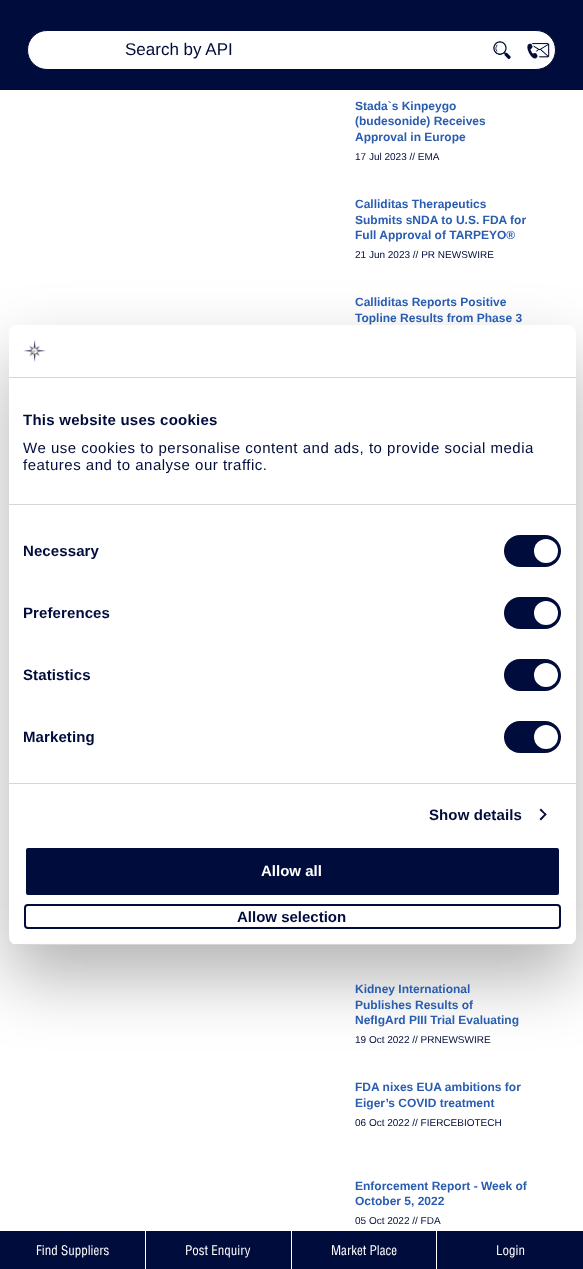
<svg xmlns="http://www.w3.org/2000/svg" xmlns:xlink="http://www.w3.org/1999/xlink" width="583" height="1269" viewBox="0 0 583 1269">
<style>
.cls-1{font:17px Liberation Sans;fill:#000c3b}
.cls-2{font:bold 12px Liberation Sans;fill:#2a5db0}
.cls-3{font:10px Liberation Sans;fill:#000c3b}
.cls-4{font:500 13px Helvetica;fill:#ffffff}
.cls-5{font:bold 15px Liberation Sans;letter-spacing:0.25px;fill:#000c3b}
.cls-6{font:15px Liberation Sans;letter-spacing:0.5px;fill:#000c3b}
.cls-7{font:bold 15px Liberation Sans;letter-spacing:0.1px;fill:#000c3b}
.cls-8{font:bold 15px Liberation Sans;fill:#ffffff}
.cls-9{font:bold 15px Liberation Sans;fill:#000c3b}
</style>
<defs>
<clipPath id="clip1"><rect x="9" y="325" width="567" height="620" rx="8"/></clipPath>
</defs>
<rect width="100%" height="100%" fill="#ffffff"/>
<rect fill="#000c3b" x="0" y="0" width="583" height="90"/>
<rect fill="#ffffff" stroke="#000c3b" x="27.5" y="30.5" width="528" height="39" rx="19.5"/>
<image xlink:href="image0.png" x="491" y="39" width="22" height="21"/>
<image xlink:href="image1.png" x="526" y="41" width="24" height="18"/>
<rect fill="#000c3b" x="0" y="1231" width="145" height="38"/>
<rect fill="#000c3b" x="146" y="1231" width="145" height="38"/>
<rect fill="#000c3b" x="292" y="1231" width="144" height="38"/>
<rect fill="#000c3b" x="437" y="1231" width="146" height="38"/>
<rect fill="#000000" fill-opacity="0.3" filter="blur(34px)" x="9" y="357" width="567" height="620" rx="8"/>
<rect fill="#ffffff" x="9" y="325" width="567" height="620" rx="8"/>
<rect fill="#d6d6d6" x="9" y="377" width="567" height="1"/>
<image xlink:href="image2.png" x="23" y="339" width="23" height="23"/>
<rect fill="#d6d6d6" x="9" y="504" width="567" height="1"/>
<rect fill="#d6d6d6" x="9" y="783" width="567" height="1"/>
<rect fill="#000c3b" x="504" y="535" width="57" height="32" rx="16"/>
<circle fill="#ffffff" cx="546" cy="551" r="12"/>
<rect fill="#000c3b" x="504" y="597" width="57" height="32" rx="16"/>
<circle fill="#ffffff" cx="546" cy="613" r="12"/>
<rect fill="#000c3b" x="504" y="659" width="57" height="32" rx="16"/>
<circle fill="#ffffff" cx="546" cy="675" r="12"/>
<rect fill="#000c3b" x="504" y="721" width="57" height="32" rx="16"/>
<circle fill="#ffffff" cx="546" cy="737" r="12"/>
<path fill="#000c3b" d="M541 808.5L546.5 814.5L545.5 815.5L539.5 810Z"/>
<path fill="#000c3b" d="M545.5 813L546.5 814.5L541 820.5L539.5 819Z"/>
<g clip-path="url(#clip1)">
<rect fill="#d6d6d6" x="9" y="944" width="567" height="1"/>
</g>
<rect fill="#000c3b" stroke="#ffffff" stroke-width="2" x="25" y="847" width="535" height="49" rx="3"/>
<rect fill="none" stroke="#000c3b" stroke-width="2" x="25" y="905" width="535" height="23" rx="3"/>
<text class="cls-1" x="125" y="55">Search by API</text>
<text class="cls-2"><tspan x="355" y="110">Stada`s Kinpeygo</tspan><tspan x="355" y="125">(budesonide) Receives</tspan><tspan x="355" y="141">Approval in Europe</tspan></text>
<text class="cls-3" x="355" y="160">17 Jul 2023 // EMA</text>
<text class="cls-2"><tspan x="355" y="208">Calliditas Therapeutics</tspan><tspan x="355" y="224">Submits sNDA to U.S. FDA for</tspan><tspan x="355" y="239">Full Approval of TARPEYO®</tspan></text>
<text class="cls-3" x="355" y="258">21 Jun 2023 // PR NEWSWIRE</text>
<text class="cls-2"><tspan x="355" y="306">Calliditas Reports Positive</tspan><tspan x="355" y="322">Topline Results from Phase 3</tspan></text>
<text class="cls-2"><tspan x="355" y="993">Kidney International</tspan><tspan x="355" y="1009">Publishes Results of</tspan><tspan x="355" y="1024">NefIgArd PIII Trial Evaluating</tspan></text>
<text class="cls-3" x="355" y="1043">19 Oct 2022 // PRNEWSWIRE</text>
<text class="cls-2"><tspan x="355" y="1091">FDA nixes EUA ambitions for</tspan><tspan x="355" y="1107">Eiger’s COVID treatment</tspan></text>
<text class="cls-3" x="355" y="1126">06 Oct 2022 // FIERCEBIOTECH</text>
<text class="cls-2"><tspan x="355" y="1190">Enforcement Report - Week of</tspan><tspan x="355" y="1205">October 5, 2022</tspan></text>
<text class="cls-3" x="355" y="1224">05 Oct 2022 // FDA</text>
<text class="cls-4" x="36" y="1255">Find Suppliers</text>
<text class="cls-4" x="185" y="1255">Post Enquiry</text>
<text class="cls-4" x="331" y="1255">Market Place</text>
<text class="cls-4" x="496" y="1255">Login</text>
<text class="cls-5" x="23" y="425">This website uses cookies</text>
<text class="cls-6"><tspan x="23" y="453">We use cookies to personalise content and ads, to provide social media</tspan><tspan x="23" y="470">features and to analyse our traffic.</tspan></text>
<text class="cls-7" x="23" y="556">Necessary</text>
<text class="cls-7" x="23" y="618">Preferences</text>
<text class="cls-7" x="23" y="680">Statistics</text>
<text class="cls-7" x="23" y="742">Marketing</text>
<text class="cls-7" x="429" y="820">Show details</text>
<text class="cls-8" x="261" y="876">Allow all</text>
<text class="cls-9" x="237" y="922">Allow selection</text>
</svg>
